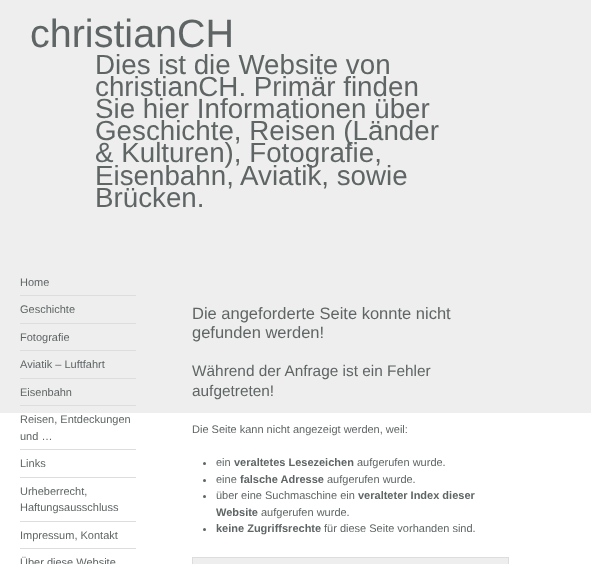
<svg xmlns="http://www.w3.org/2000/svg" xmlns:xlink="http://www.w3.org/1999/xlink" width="591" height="564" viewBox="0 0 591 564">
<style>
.cls-1{font:39.5px Liberation Sans;fill:#5f6565}
.cls-2{font:27.75px Liberation Sans;fill:#5f6565}
.cls-3{font:11px Liberation Sans;fill:#5f6565}
.cls-4{font:16.5px Liberation Sans;fill:#5f6565}
.cls-5{font:15.4px Liberation Sans;fill:#5f6565}
.cls-6{font:bold 11px Liberation Sans;fill:#5f6565}
</style>
<rect width="100%" height="100%" fill="#ffffff"/>
<rect fill="#eeeeee" x="0" y="0" width="591" height="413"/>
<rect fill="#dddddd" x="20" y="295" width="116" height="1"/>
<rect fill="#dddddd" x="20" y="323" width="116" height="1"/>
<rect fill="#dddddd" x="20" y="350" width="116" height="1"/>
<rect fill="#dddddd" x="20" y="378" width="116" height="1"/>
<rect fill="#dddddd" x="20" y="405" width="116" height="1"/>
<rect fill="#dddddd" x="20" y="449" width="116" height="1"/>
<rect fill="#dddddd" x="20" y="477" width="116" height="1"/>
<rect fill="#dddddd" x="20" y="521" width="116" height="1"/>
<rect fill="#dddddd" x="20" y="548" width="116" height="1"/>
<circle fill="#5f6565" cx="204.5" cy="463.5" r="1.5"/>
<circle fill="#5f6565" cx="204.5" cy="480.5" r="1.5"/>
<circle fill="#5f6565" cx="204.5" cy="496.5" r="1.5"/>
<circle fill="#5f6565" cx="204.5" cy="529.5" r="1.5"/>
<rect fill="#eeeeee" stroke="#dddddd" x="192.5" y="557.5" width="316" height="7"/>
<text class="cls-1" x="30" y="47">christianCH</text>
<text class="cls-2"><tspan x="95" y="74">Dies ist die Website von</tspan><tspan x="95" y="96">christianCH. Primär finden</tspan><tspan x="95" y="118">Sie hier Informationen über</tspan><tspan x="95" y="140">Geschichte, Reisen (Länder</tspan><tspan x="95" y="162">&amp; Kulturen), Fotografie,</tspan><tspan x="95" y="185">Eisenbahn, Aviatik, sowie</tspan><tspan x="95" y="207">Brücken.</tspan></text>
<text class="cls-3" x="20" y="286">Home</text>
<text class="cls-3" x="20" y="313">Geschichte</text>
<text class="cls-3" x="20" y="341">Fotografie</text>
<text class="cls-3" x="20" y="368">Aviatik – Luftfahrt</text>
<text class="cls-3" x="20" y="396">Eisenbahn</text>
<text class="cls-3"><tspan x="20" y="423">Reisen, Entdeckungen</tspan><tspan x="20" y="440">und …</tspan></text>
<text class="cls-3" x="20" y="467">Links</text>
<text class="cls-3"><tspan x="20" y="495">Urheberrecht,</tspan><tspan x="20" y="511">Haftungsausschluss</tspan></text>
<text class="cls-3" x="20" y="539">Impressum, Kontakt</text>
<text class="cls-3" x="20" y="566">Über diese Website</text>
<text class="cls-4"><tspan x="192" y="319">Die angeforderte Seite konnte nicht</tspan><tspan x="192" y="338">gefunden werden!</tspan></text>
<text class="cls-5"><tspan x="192" y="376">Während der Anfrage ist ein Fehler</tspan><tspan x="192" y="396">aufgetreten!</tspan></text>
<text class="cls-3" x="192" y="433">Die Seite kann nicht angezeigt werden, weil:</text>
<text class="cls-3" x="216" y="466">ein</text>
<text class="cls-6" x="234" y="466">veraltetes Lesezeichen</text>
<text class="cls-3" x="357" y="466">aufgerufen wurde.</text>
<text class="cls-3" x="216" y="483">eine</text>
<text class="cls-6" x="240" y="483">falsche Adresse</text>
<text class="cls-3" x="327" y="483">aufgerufen wurde.</text>
<text class="cls-3" x="216" y="499">über eine Suchmaschine ein</text>
<text class="cls-6" x="358" y="499">veralteter Index dieser</text>
<text class="cls-6" x="216" y="516">Website</text>
<text class="cls-3" x="261" y="516">aufgerufen wurde.</text>
<text class="cls-6" x="216" y="532">keine Zugriffsrechte</text>
<text class="cls-3" x="324" y="532">für diese Seite vorhanden sind.</text>
</svg>
